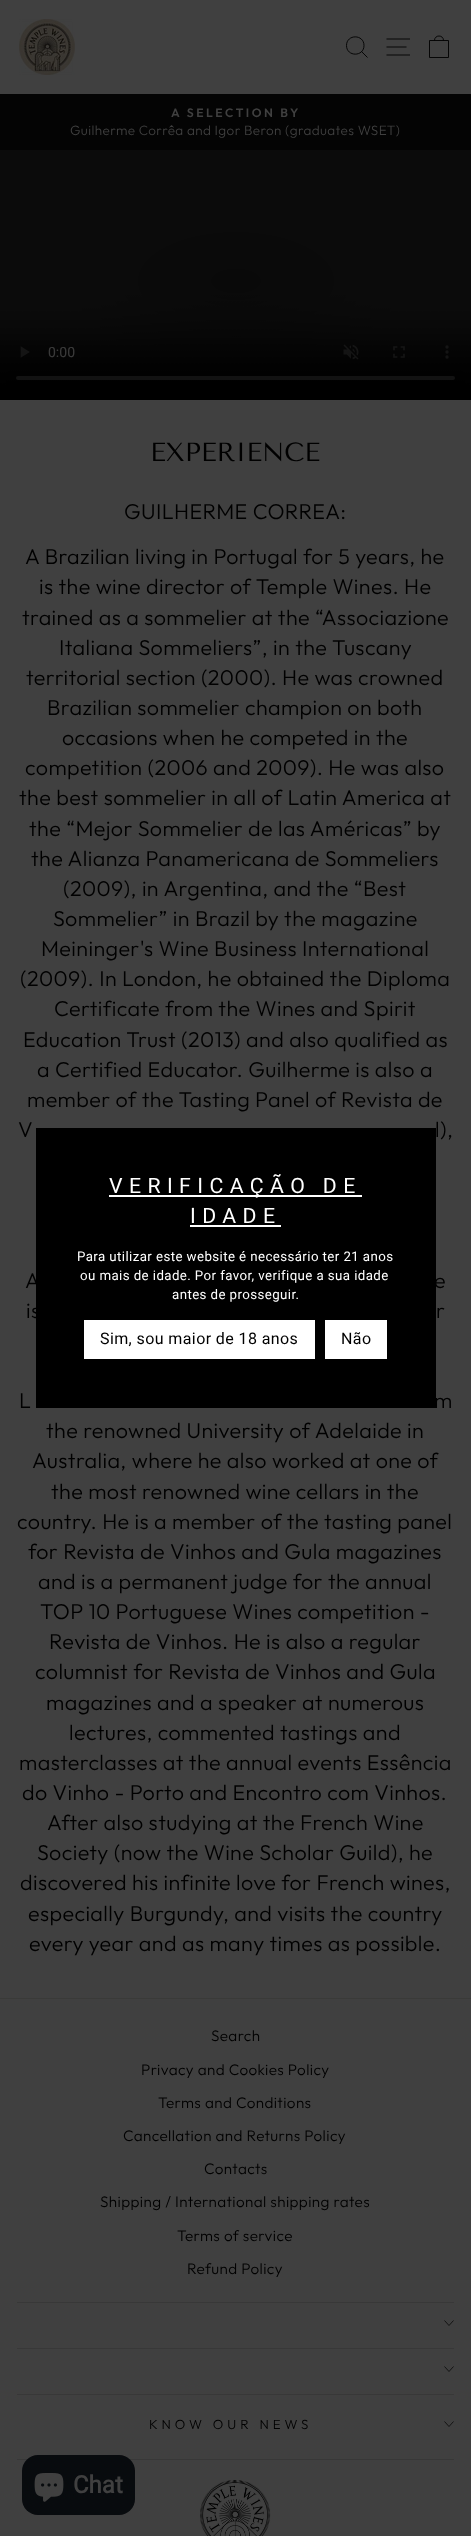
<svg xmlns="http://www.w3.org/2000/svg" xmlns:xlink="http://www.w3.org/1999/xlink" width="471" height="2536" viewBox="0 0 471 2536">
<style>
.cls-1{font:600 12.2px Outfit;letter-spacing:2.5px;fill:#404040}
.cls-2{font:300 13.5px Outfit;letter-spacing:0.4px;fill:#404040}
.cls-3{font:26.25px Tenor Sans;fill:#000000}
.cls-4{font:300 21.5px Outfit;letter-spacing:0.4px;fill:#000000}
.cls-5{font:300 15.25px Outfit;letter-spacing:0.4px;fill:#000000}
.cls-6{font:300 13.25px Outfit;letter-spacing:4px;fill:#000000}
.cls-7{font:21.25px Roboto;letter-spacing:6.4px;fill:#ffffff}
.cls-8{font:13.3px Roboto;letter-spacing:0.4px;fill:#ffffff}
.cls-9{font:16px Roboto;letter-spacing:0.4px;fill:#000000}
.cls-10{font:bold 24px Roboto;fill:#404040}
</style>
<rect width="100%" height="100%" fill="#404040"/>
<image xlink:href="image0.png" x="19" y="19" width="56" height="56"/>
<path fill="none" stroke="#000000" stroke-width="0.9" d="M364 45.5C364 57 346.5 57 346.5 45.5C346.5 34 364 34 364 45.5ZM367.5 57.5L361.5 51.5"/>
<path fill="none" stroke="#000000" stroke-width="0.9" d="M386.5 39H410M386.5 47H406.5M386.5 55H410M429.5 40.5H448.5V57.5H429.5ZM434.5 40.5C434.5 34.5 443.5 34.5 443.5 40.5"/>
<rect fill="#040404" x="0" y="94" width="471" height="56"/>
<image xlink:href="image1.png" x="0" y="150" width="471" height="250"/>
<rect fill="#3a3a38" x="0" y="1998" width="471" height="1"/>
<rect fill="#383838" x="17" y="2302" width="437" height="1"/>
<path fill="none" stroke="#000000" stroke-width="0.7" d="M444.5 2320.5L449 2325.5L453.5 2320.5"/>
<rect fill="#383838" x="17" y="2348" width="437" height="1"/>
<path fill="none" stroke="#000000" stroke-width="0.7" d="M444.5 2366.5L449 2371.5L453.5 2366.5"/>
<rect fill="#383838" x="17" y="2394" width="437" height="1"/>
<path fill="none" stroke="#000000" stroke-width="0.7" d="M444.5 2421.5L449 2426.5L453.5 2421.5"/>
<rect fill="#383838" x="17" y="2459" width="437" height="1"/>
<image xlink:href="image2.png" x="200" y="2480" width="71" height="56"/>
<rect fill="#000000" x="36" y="1128" width="400" height="280"/>
<rect fill="#ffffff" x="109" y="1195" width="253" height="2"/>
<rect fill="#ffffff" x="190" y="1225" width="91" height="2"/>
<rect fill="#ffffff" x="84" y="1320" width="231" height="39"/>
<rect fill="#ffffff" x="325" y="1320" width="62" height="39"/>
<rect fill="#080b0e" x="22" y="2455" width="113" height="60" rx="16"/>
<image xlink:href="image3.png" x="34" y="2473" width="30" height="29"/>
<text class="cls-1" x="171" y="117">A SELECTION BY</text>
<text class="cls-2" x="70" y="135">Guilherme Corrêa and Igor Beron (graduates WSET)</text>
<text class="cls-3" x="150" y="461">EXPERIENCE</text>
<text class="cls-4" x="124" y="519">GUILHERME CORREA:</text>
<text class="cls-4" x="25" y="564">A Brazilian living in Portugal for 5 years, he</text>
<text class="cls-4" x="39" y="594">is the wine director of Temple Wines. He</text>
<text class="cls-4" x="22" y="625">trained as a sommelier at the “Associazione</text>
<text class="cls-4" x="59" y="655">Italiana Sommeliers”, in the Tuscany</text>
<text class="cls-4" x="26" y="685">territorial section (2000). He was crowned</text>
<text class="cls-4" x="47" y="715">Brazilian sommelier champion on both</text>
<text class="cls-4" x="62" y="745">occasions when he competed in the</text>
<text class="cls-4" x="25" y="775">competition (2006 and 2009). He was also</text>
<text class="cls-4" x="19" y="805">the best sommelier in all of Latin America at</text>
<text class="cls-4" x="29" y="836">the “Mejor Sommelier de las Américas” by</text>
<text class="cls-4" x="31" y="866">the Alianza Panamericana de Sommeliers</text>
<text class="cls-4" x="63" y="896">(2009), in Argentina, and the “Best</text>
<text class="cls-4" x="53" y="926">Sommelier” in Brazil by the magazine</text>
<text class="cls-4" x="41" y="956">Meininger's Wine Business International</text>
<text class="cls-4" x="20" y="986">(2009). In London, he obtained the Diploma</text>
<text class="cls-4" x="54" y="1016">Certificate from the Wines and Spirit</text>
<text class="cls-4" x="23" y="1047">Education Trust (2013) and also qualified as</text>
<text class="cls-4" x="37" y="1077">a Certified Educator. Guilherme is also a</text>
<text class="cls-4" x="27" y="1107">member of the Tasting Panel of Revista de</text>
<text class="cls-4" x="18" y="1137">V</text>
<text class="cls-4" x="435" y="1137">l),</text>
<text class="cls-4" x="25" y="1288">A</text>
<text class="cls-4" x="434" y="1288">e</text>
<text class="cls-4" x="26" y="1318">is</text>
<text class="cls-4" x="436" y="1318">r</text>
<text class="cls-4" x="19" y="1408">L</text>
<text class="cls-4" x="434" y="1408">m</text>
<text class="cls-4" x="46" y="1438">the renowned University of Adelaide in</text>
<text class="cls-4" x="32" y="1468">Australia, where he also worked at one of</text>
<text class="cls-4" x="51" y="1499">the most renowned wine cellars in the</text>
<text class="cls-4" x="17" y="1529">country. He is a member of the tasting panel</text>
<text class="cls-4" x="28" y="1559">for Revista de Vinhos and Gula magazines</text>
<text class="cls-4" x="38" y="1589">and is a permanent judge for the annual</text>
<text class="cls-4" x="40" y="1619">TOP 10 Portuguese Wines competition -</text>
<text class="cls-4" x="49" y="1649">Revista de Vinhos. He is also a regular</text>
<text class="cls-4" x="35" y="1679">columnist for Revista de Vinhos and Gula</text>
<text class="cls-4" x="46" y="1710">magazines and a speaker at numerous</text>
<text class="cls-4" x="69" y="1740">lectures, commented tastings and</text>
<text class="cls-4" x="19" y="1770">masterclasses at the annual events Essência</text>
<text class="cls-4" x="22" y="1800">do Vinho - Porto and Encontro com Vinhos.</text>
<text class="cls-4" x="47" y="1830">After also studying at the French Wine</text>
<text class="cls-4" x="37" y="1860">Society (now the Wine Scholar Guild), he</text>
<text class="cls-4" x="20" y="1890">discovered his infinite love for French wines,</text>
<text class="cls-4" x="28" y="1921">especially Burgundy, and visits the country</text>
<text class="cls-4" x="29" y="1951">every year and as many times as possible.</text>
<text class="cls-5" x="211" y="2041">Search</text>
<text class="cls-5" x="141" y="2075">Privacy and Cookies Policy</text>
<text class="cls-5" x="158" y="2108">Terms and Conditions</text>
<text class="cls-5" x="123" y="2141">Cancellation and Returns Policy</text>
<text class="cls-5" x="204" y="2174">Contacts</text>
<text class="cls-5" x="100" y="2207">Shipping / International shipping rates</text>
<text class="cls-5" x="177" y="2241">Terms of service</text>
<text class="cls-5" x="187" y="2274">Refund Policy</text>
<text class="cls-6" x="149" y="2429">KNOW OUR NEWS</text>
<text class="cls-7" x="109" y="1193">VERIFICAÇÃO DE</text>
<text class="cls-7" x="190" y="1223">IDADE</text>
<text class="cls-8" x="77" y="1261">Para utilizar este website é necessário ter 21 anos</text>
<text class="cls-8" x="80" y="1280">ou mais de idade. Por favor, verifique a sua idade</text>
<text class="cls-8" x="172" y="1299">antes de prosseguir.</text>
<text class="cls-9" x="100" y="1344">Sim, sou maior de 18 anos</text>
<text class="cls-9" x="341" y="1344">Não</text>
<text class="cls-10" x="73" y="2493">Chat</text>
</svg>
